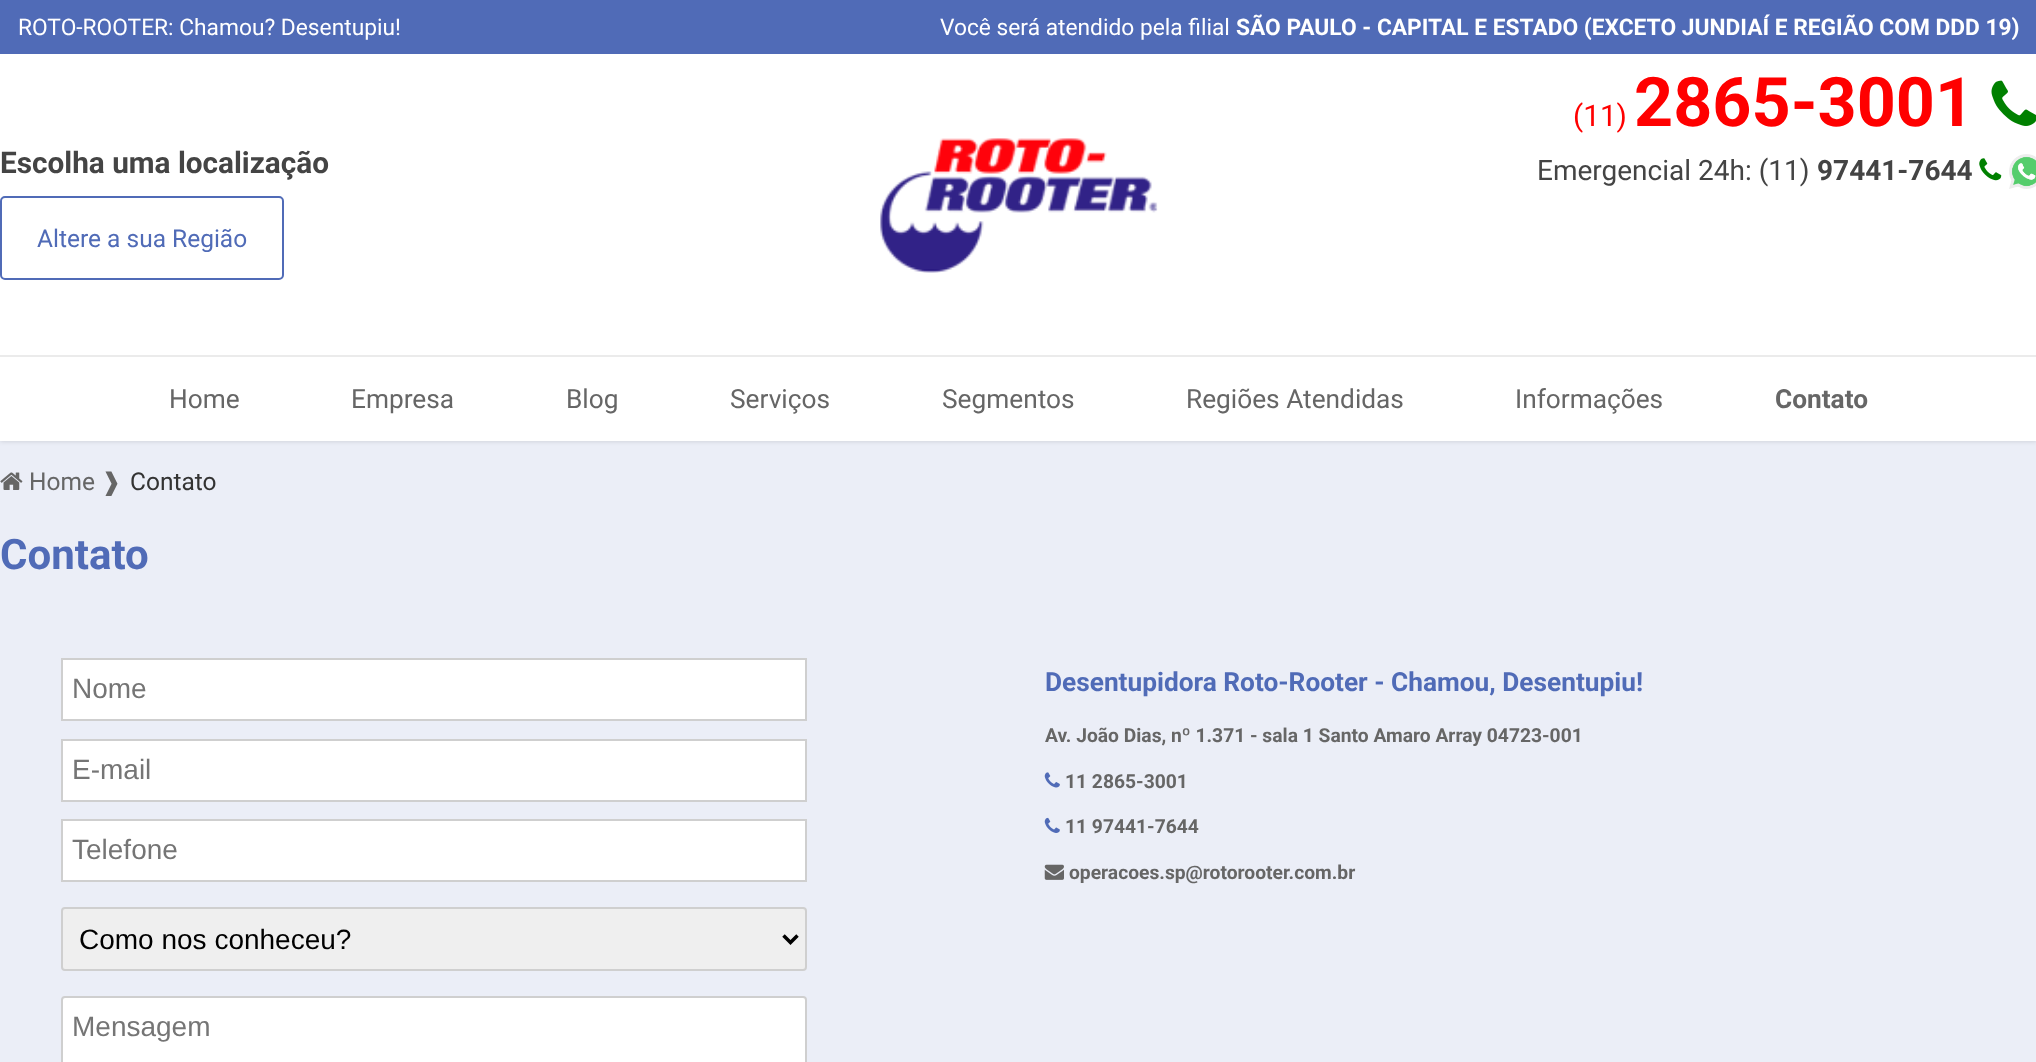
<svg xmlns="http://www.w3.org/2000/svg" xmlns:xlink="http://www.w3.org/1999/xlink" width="2036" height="1062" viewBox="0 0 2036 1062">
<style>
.cls-1{font:22.75px Roboto;fill:#ffffff}
.cls-2{font:bold 22.75px Roboto;fill:#ffffff}
.cls-3{font:29.75px Roboto;fill:#ff0000}
.cls-4{font:bold 68.25px Roboto;fill:#ff0000}
.cls-5{font:28px Roboto;fill:#444444}
.cls-6{font:bold 28px Roboto;fill:#444444}
.cls-7{font:bold 29.75px Roboto;fill:#444444}
.cls-8{font:24.5px Roboto;fill:#506bb7}
.cls-9{font:26.25px Roboto;fill:#666666}
.cls-10{font:bold 26.25px Roboto;fill:#666666}
.cls-11{font:24.5px Roboto;fill:#666666}
.cls-12{font:24.5px DejaVu Sans;fill:#666666}
.cls-13{font:24.5px Roboto;fill:#333333}
.cls-14{font:bold 42px Roboto;fill:#506bb7}
.cls-15{font:28px Liberation Sans;fill:#757575}
.cls-16{font:28px Liberation Sans;fill:#000000}
.cls-17{font:bold 26.25px Roboto;fill:#506bb7}
.cls-18{font:bold 19.25px Roboto;fill:#666666}
</style>
<rect width="100%" height="100%" fill="#ebeef7"/>
<rect fill="#000000" fill-opacity="0.15" filter="blur(2.5px)" x="0" y="0" width="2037" height="441"/>
<rect fill="#ffffff" x="0" y="54" width="2036" height="387"/>
<rect fill="#506bb7" x="0" y="0" width="2036" height="54"/>
<image xlink:href="image0.png" x="1991" y="80" width="45" height="46"/>
<image xlink:href="image1.png" x="1979" y="158" width="23" height="23"/>
<image xlink:href="image2.png" x="2009" y="154" width="27" height="35"/>
<rect fill="none" stroke="#506bb7" stroke-width="2" x="1" y="197" width="282" height="82" rx="4"/>
<image xlink:href="image3.png" x="880" y="138" width="278" height="135"/>
<rect fill="#ebebeb" x="0" y="355" width="2036" height="2"/>
<image xlink:href="image4.png" x="0" y="472" width="23" height="18"/>
<rect fill="#ffffff" stroke="#cfcfcf" stroke-width="2" x="62" y="659" width="744" height="61"/>
<rect fill="#ffffff" stroke="#cfcfcf" stroke-width="2" x="62" y="740" width="744" height="61"/>
<rect fill="#ffffff" stroke="#cfcfcf" stroke-width="2" x="62" y="820" width="744" height="61"/>
<rect fill="#efefef" stroke="#cfcfcf" stroke-width="2" x="62" y="908" width="744" height="62" rx="3"/>
<path fill="none" stroke="#000000" stroke-width="3.5" d="M783.5 935.5L790.5 942.5L797.5 935.5"/>
<rect fill="#ffffff" stroke="#cfcfcf" stroke-width="2" x="62" y="997" width="744" height="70" rx="3"/>
<image xlink:href="image5.png" x="1044" y="772" width="16" height="16"/>
<image xlink:href="image6.png" x="1044" y="817" width="16" height="16"/>
<image xlink:href="image7.png" x="1044" y="864" width="20" height="16"/>
<text class="cls-1" x="18" y="35">ROTO-ROOTER: Chamou? Desentupiu!</text>
<text class="cls-1" x="940" y="35">Você será atendido pela filial</text>
<text class="cls-2" x="1236" y="35">SÃO PAULO - CAPITAL E ESTADO (EXCETO JUNDIAÍ E REGIÃO COM DDD 19)</text>
<text class="cls-3" x="1573" y="126">(11)</text>
<text class="cls-4" x="1634" y="126">2865-3001</text>
<text class="cls-5" x="1537" y="180">Emergencial 24h: (11)</text>
<text class="cls-6" x="1817" y="180">97441-7644</text>
<text class="cls-7" x="0" y="173">Escolha uma localização</text>
<text class="cls-8" x="37" y="247">Altere a sua Região</text>
<text class="cls-9" x="169" y="408">Home</text>
<text class="cls-9" x="351" y="408">Empresa</text>
<text class="cls-9" x="566" y="408">Blog</text>
<text class="cls-9" x="730" y="408">Serviços</text>
<text class="cls-9" x="942" y="408">Segmentos</text>
<text class="cls-9" x="1186" y="408">Regiões Atendidas</text>
<text class="cls-9" x="1515" y="408">Informações</text>
<text class="cls-10" x="1775" y="408">Contato</text>
<text class="cls-11" x="29" y="490">Home</text>
<text class="cls-12" x="101" y="490">❱</text>
<text class="cls-13" x="130" y="490">Contato</text>
<text class="cls-14" x="0" y="569">Contato</text>
<text class="cls-15" x="72" y="698">Nome</text>
<text class="cls-15" x="72" y="779">E-mail</text>
<text class="cls-15" x="72" y="859">Telefone</text>
<text class="cls-16" x="79" y="949">Como nos conheceu?</text>
<text class="cls-15" x="72" y="1036">Mensagem</text>
<text class="cls-17" x="1045" y="691">Desentupidora Roto-Rooter - Chamou, Desentupiu!</text>
<text class="cls-18" x="1045" y="742">Av. João Dias, nº 1.371 - sala 1 Santo Amaro Array 04723-001</text>
<text class="cls-18" x="1065" y="788">11 2865-3001</text>
<text class="cls-18" x="1065" y="833">11 97441-7644</text>
<text class="cls-18" x="1069" y="879">operacoes.sp@rotorooter.com.br</text>
</svg>
